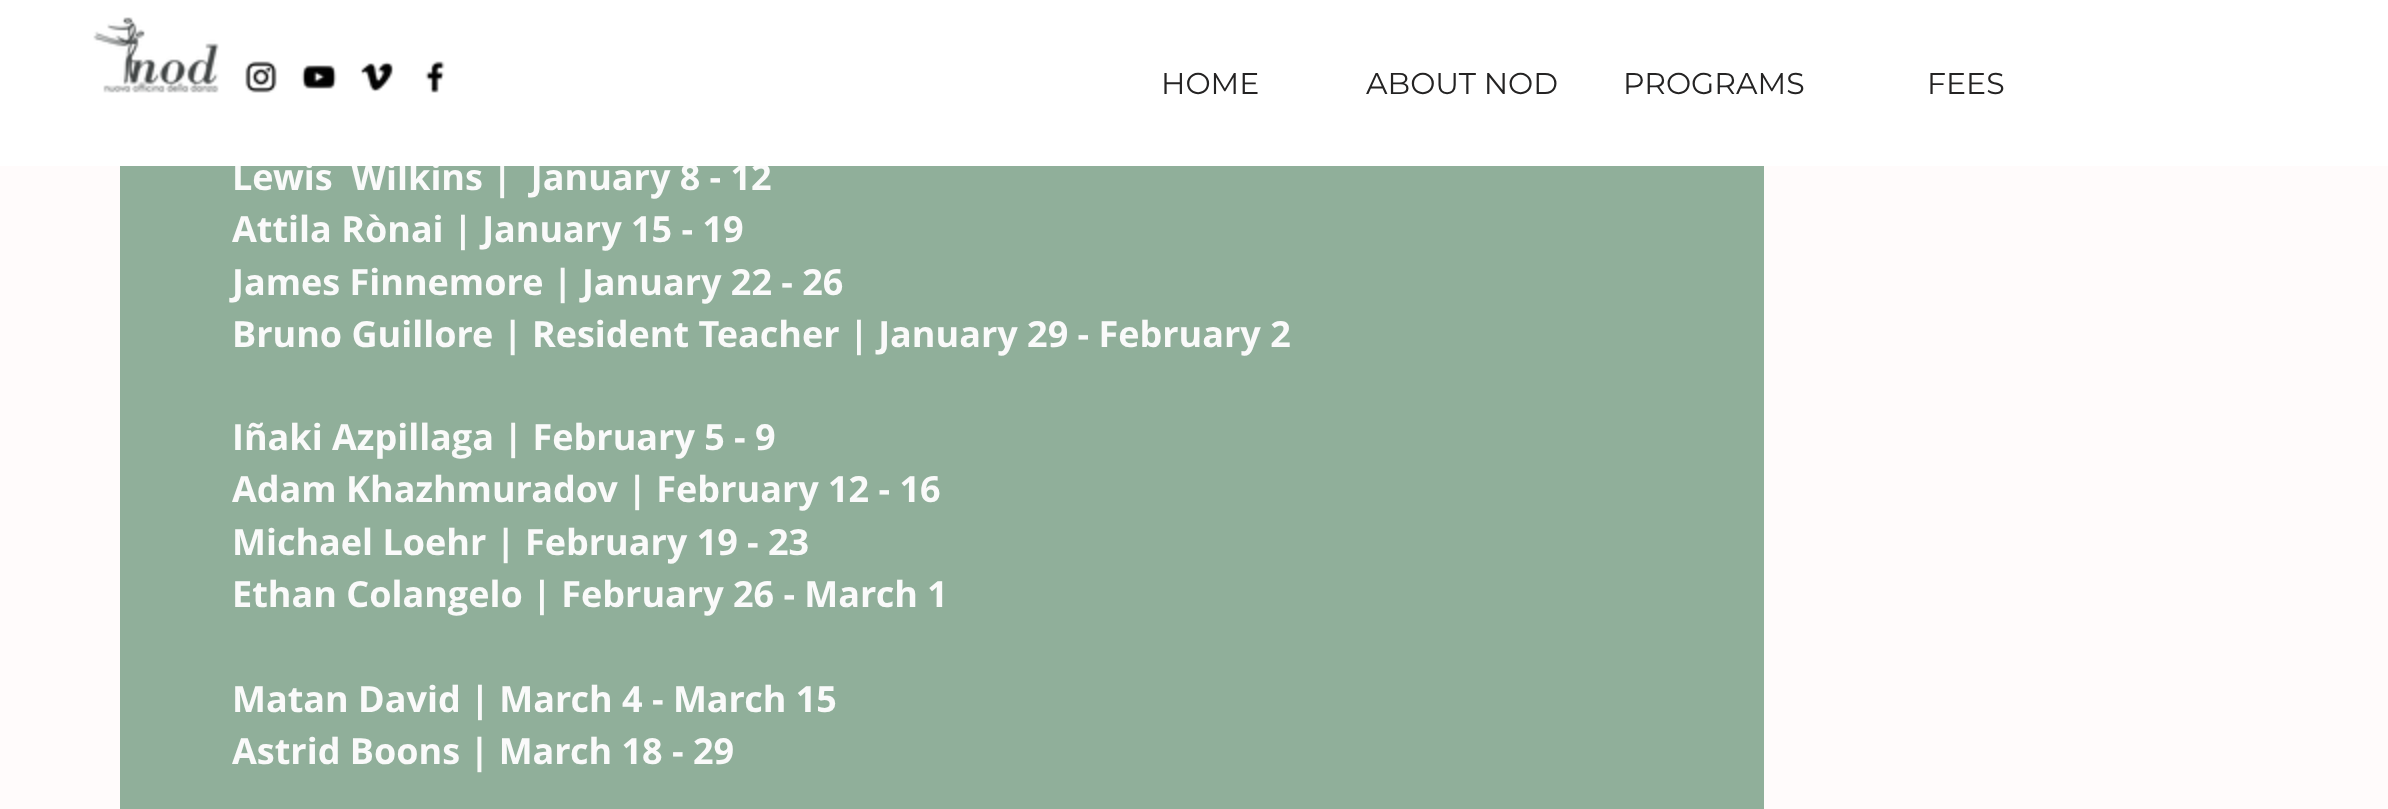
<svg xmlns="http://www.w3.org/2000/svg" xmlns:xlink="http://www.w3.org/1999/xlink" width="2388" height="809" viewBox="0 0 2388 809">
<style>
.cls-1{font:bold 36px Open Sans;fill:#fafafa}
.cls-2{font:30px Montserrat;fill:#242323}
</style>
<rect width="100%" height="100%" fill="#fffbfb"/>
<rect fill="#90af9a" x="120" y="166" width="1644" height="643"/>
<text class="cls-1" xml:space="preserve" x="232" y="190">Lewis  Wilkins |  January 8 - 12</text>
<rect fill="#ffffff" x="0" y="0" width="2388" height="166"/>
<image xlink:href="image0.png" x="93" y="17" width="126" height="76"/>
<text class="cls-2" x="1927" y="94">FEES</text>
<text class="cls-2" x="1623" y="94">PROGRAMS</text>
<text class="cls-2" x="1366" y="94">ABOUT NOD</text>
<text class="cls-2" x="1161" y="94">HOME</text>
<image xlink:href="image4.png" x="425" y="61" width="20" height="32"/>
<image xlink:href="image3.png" x="360" y="61" width="34" height="31"/>
<image xlink:href="image2.png" x="301" y="65" width="36" height="24"/>
<image xlink:href="image1.png" x="245" y="61" width="32" height="32"/>
<text class="cls-1"><tspan x="232" y="242">Attila Rònai | January 15 - 19</tspan><tspan x="232" y="295">James Finnemore | January 22 - 26</tspan><tspan x="232" y="347">Bruno Guillore | Resident Teacher | January 29 - February 2</tspan></text>
<text class="cls-1"><tspan x="232" y="450">Iñaki Azpillaga | February 5 - 9</tspan><tspan x="232" y="502">Adam Khazhmuradov | February 12 - 16</tspan><tspan x="232" y="555">Michael Loehr | February 19 - 23</tspan><tspan x="232" y="607">Ethan Colangelo | February 26 - March 1</tspan></text>
<text class="cls-1"><tspan x="232" y="712">Matan David | March 4 - March 15</tspan><tspan x="232" y="764">Astrid Boons | March 18 - 29</tspan></text>
</svg>
